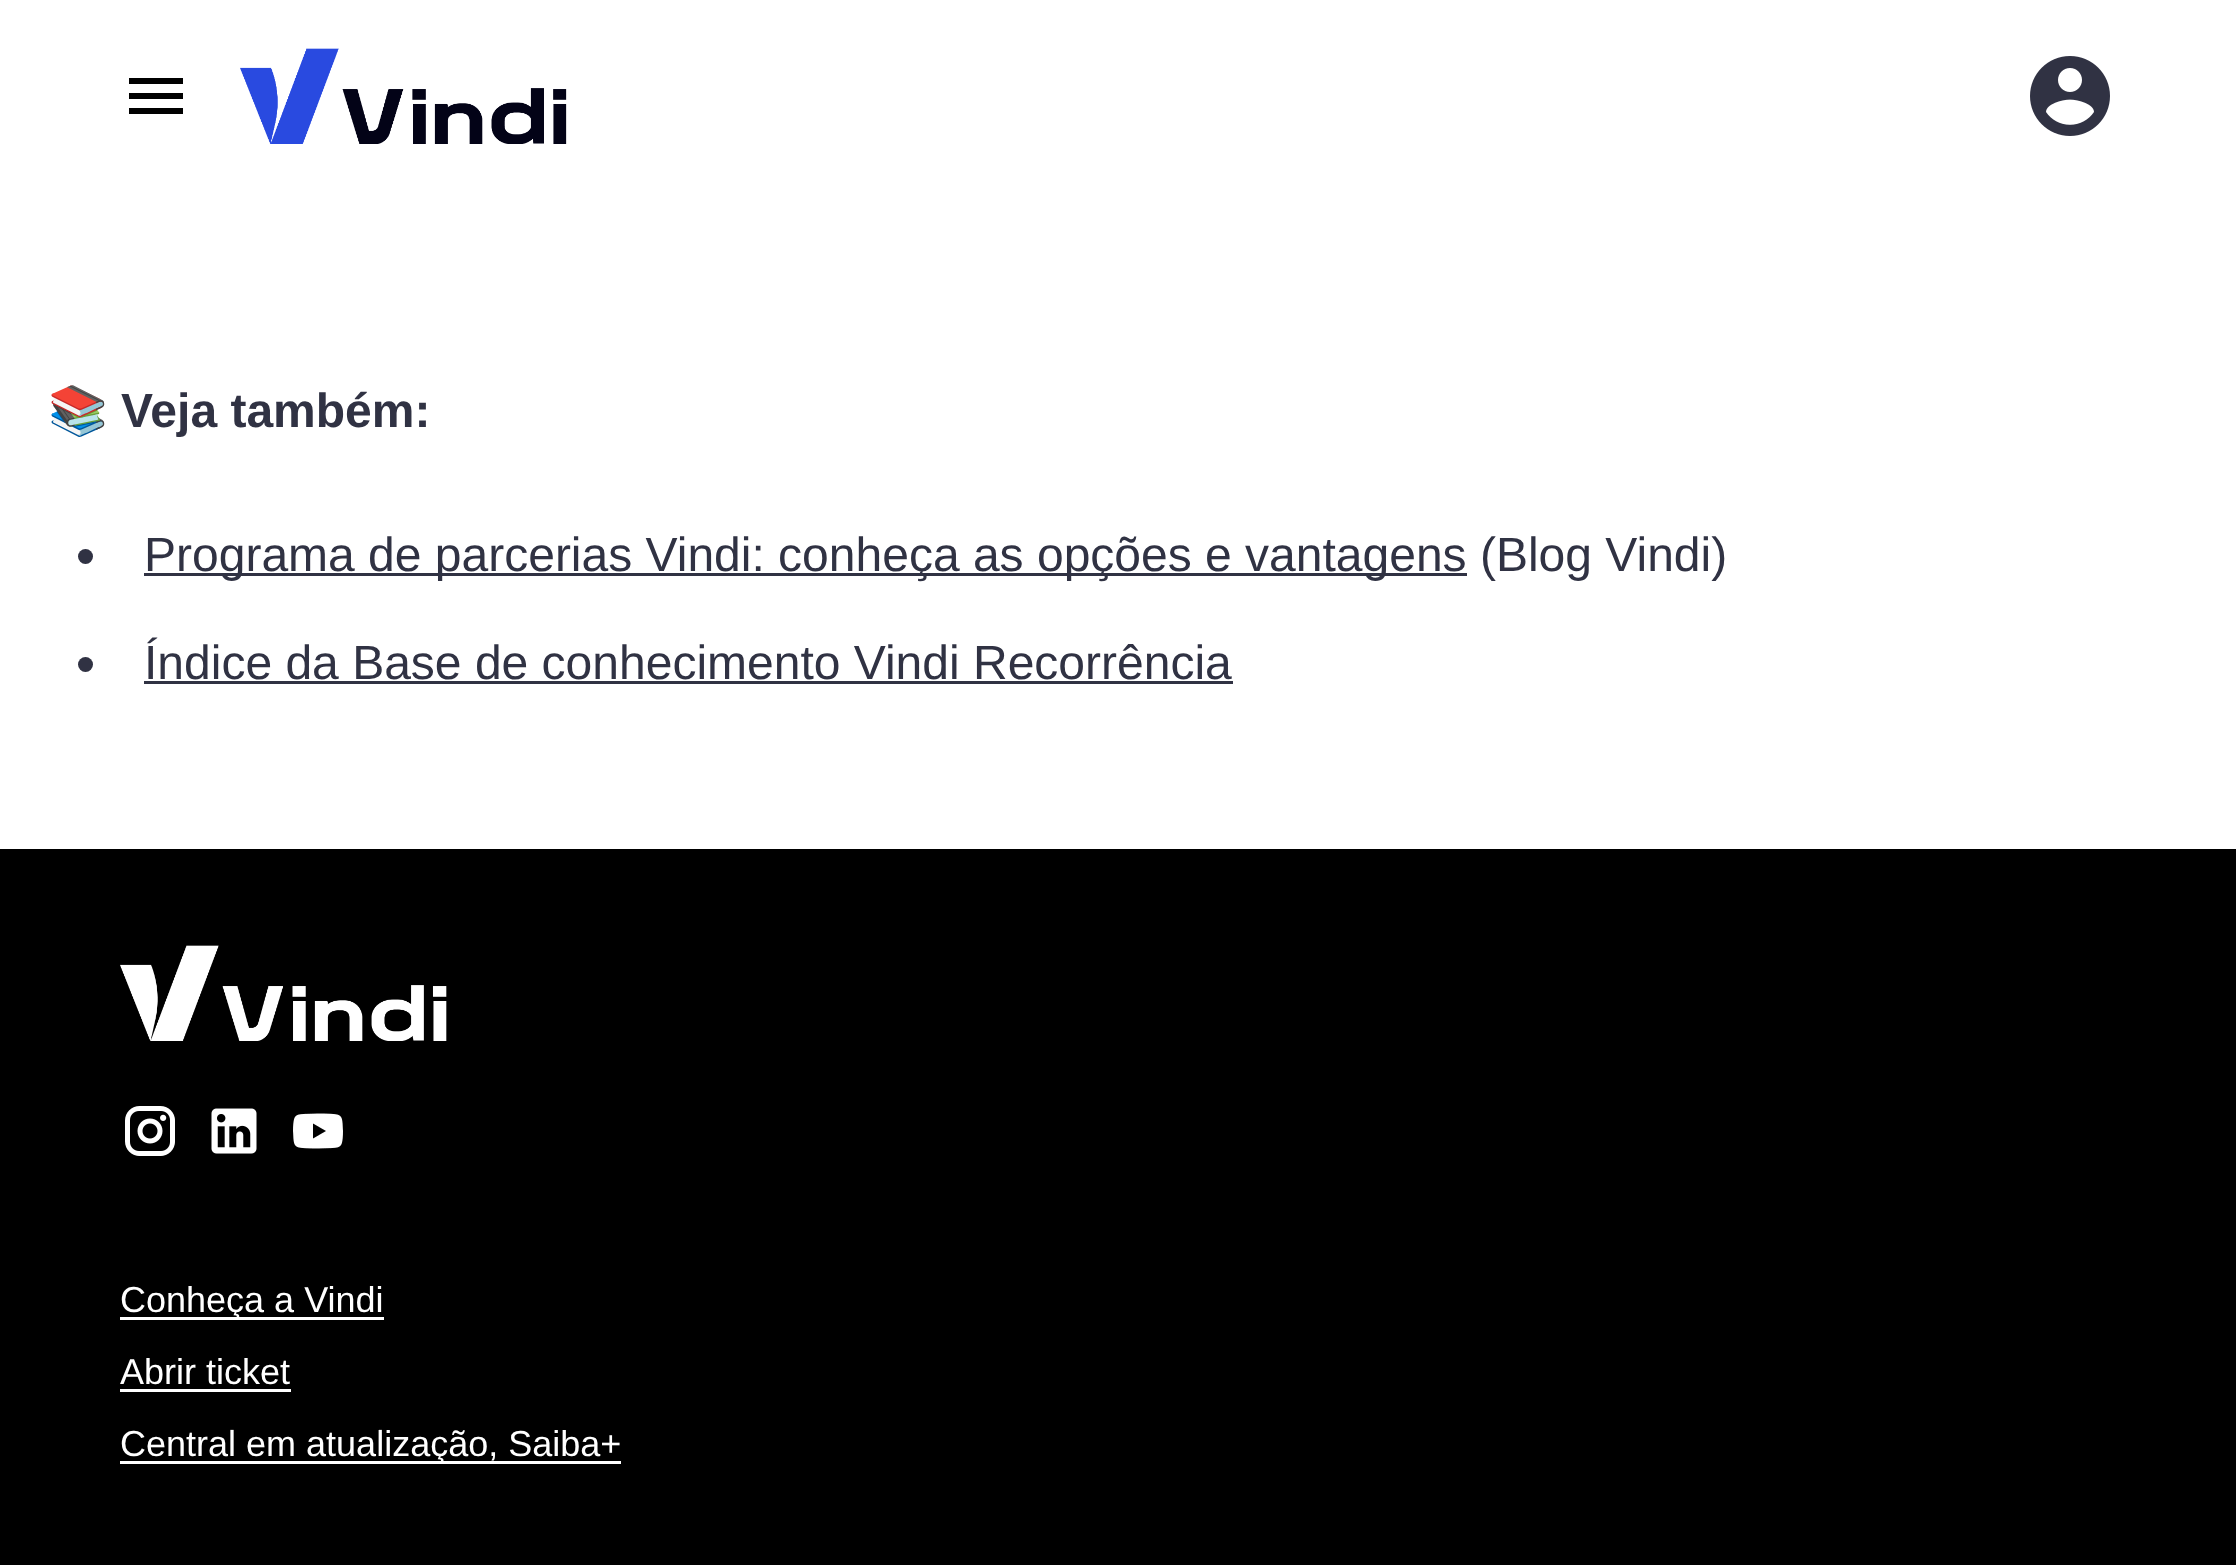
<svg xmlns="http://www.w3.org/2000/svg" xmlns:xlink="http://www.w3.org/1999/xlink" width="2236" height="1565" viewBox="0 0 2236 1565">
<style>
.cls-1{font:bold 48px Noto Color Emoji;fill:#303243}
.cls-2{font:bold 48px Liberation Sans;fill:#303243}
.cls-3{font:48px Liberation Sans;fill:#303243}
.cls-4{font:36px Liberation Sans;fill:#ffffff}
</style>
<rect width="100%" height="100%" fill="#ffffff"/>
<path fill="#000000" d="M129 78H183V84H129ZM129 93H183V99H129ZM129 108H183V114H129Z"/>
<image xlink:href="image0.png" x="240" y="48" width="327" height="96"/>
<image xlink:href="image1.png" x="2030" y="56" width="80" height="80"/>
<circle fill="#303243" cx="85.5" cy="556.5" r="7.5"/>
<rect fill="#303243" x="144" y="573" width="1323" height="3"/>
<circle fill="#303243" cx="85.5" cy="664.5" r="7.5"/>
<rect fill="#303243" x="144" y="681" width="1089" height="3"/>
<rect fill="#000000" x="0" y="849" width="2236" height="716"/>
<image xlink:href="image2.png" x="120" y="945" width="327" height="96"/>
<image xlink:href="image3.png" x="125" y="1106" width="50" height="50"/>
<image xlink:href="image4.png" x="211" y="1108" width="46" height="46"/>
<image xlink:href="image5.png" x="293" y="1113" width="50" height="36"/>
<rect fill="#ffffff" x="120" y="1317" width="264" height="3"/>
<rect fill="#ffffff" x="120" y="1389" width="171" height="3"/>
<rect fill="#ffffff" x="120" y="1461" width="501" height="3"/>
<text class="cls-1" x="48" y="427">📚</text>
<text class="cls-2" x="121" y="427">Veja também:</text>
<text class="cls-3" x="144" y="571">Programa de parcerias Vindi: conheça as opções e vantagens (Blog Vindi)</text>
<text class="cls-3" x="144" y="679">Índice da Base de conhecimento Vindi Recorrência</text>
<text class="cls-4" x="120" y="1312">Conheça a Vindi</text>
<text class="cls-4" x="120" y="1384">Abrir ticket</text>
<text class="cls-4" x="120" y="1456">Central em atualização, Saiba+</text>
</svg>
